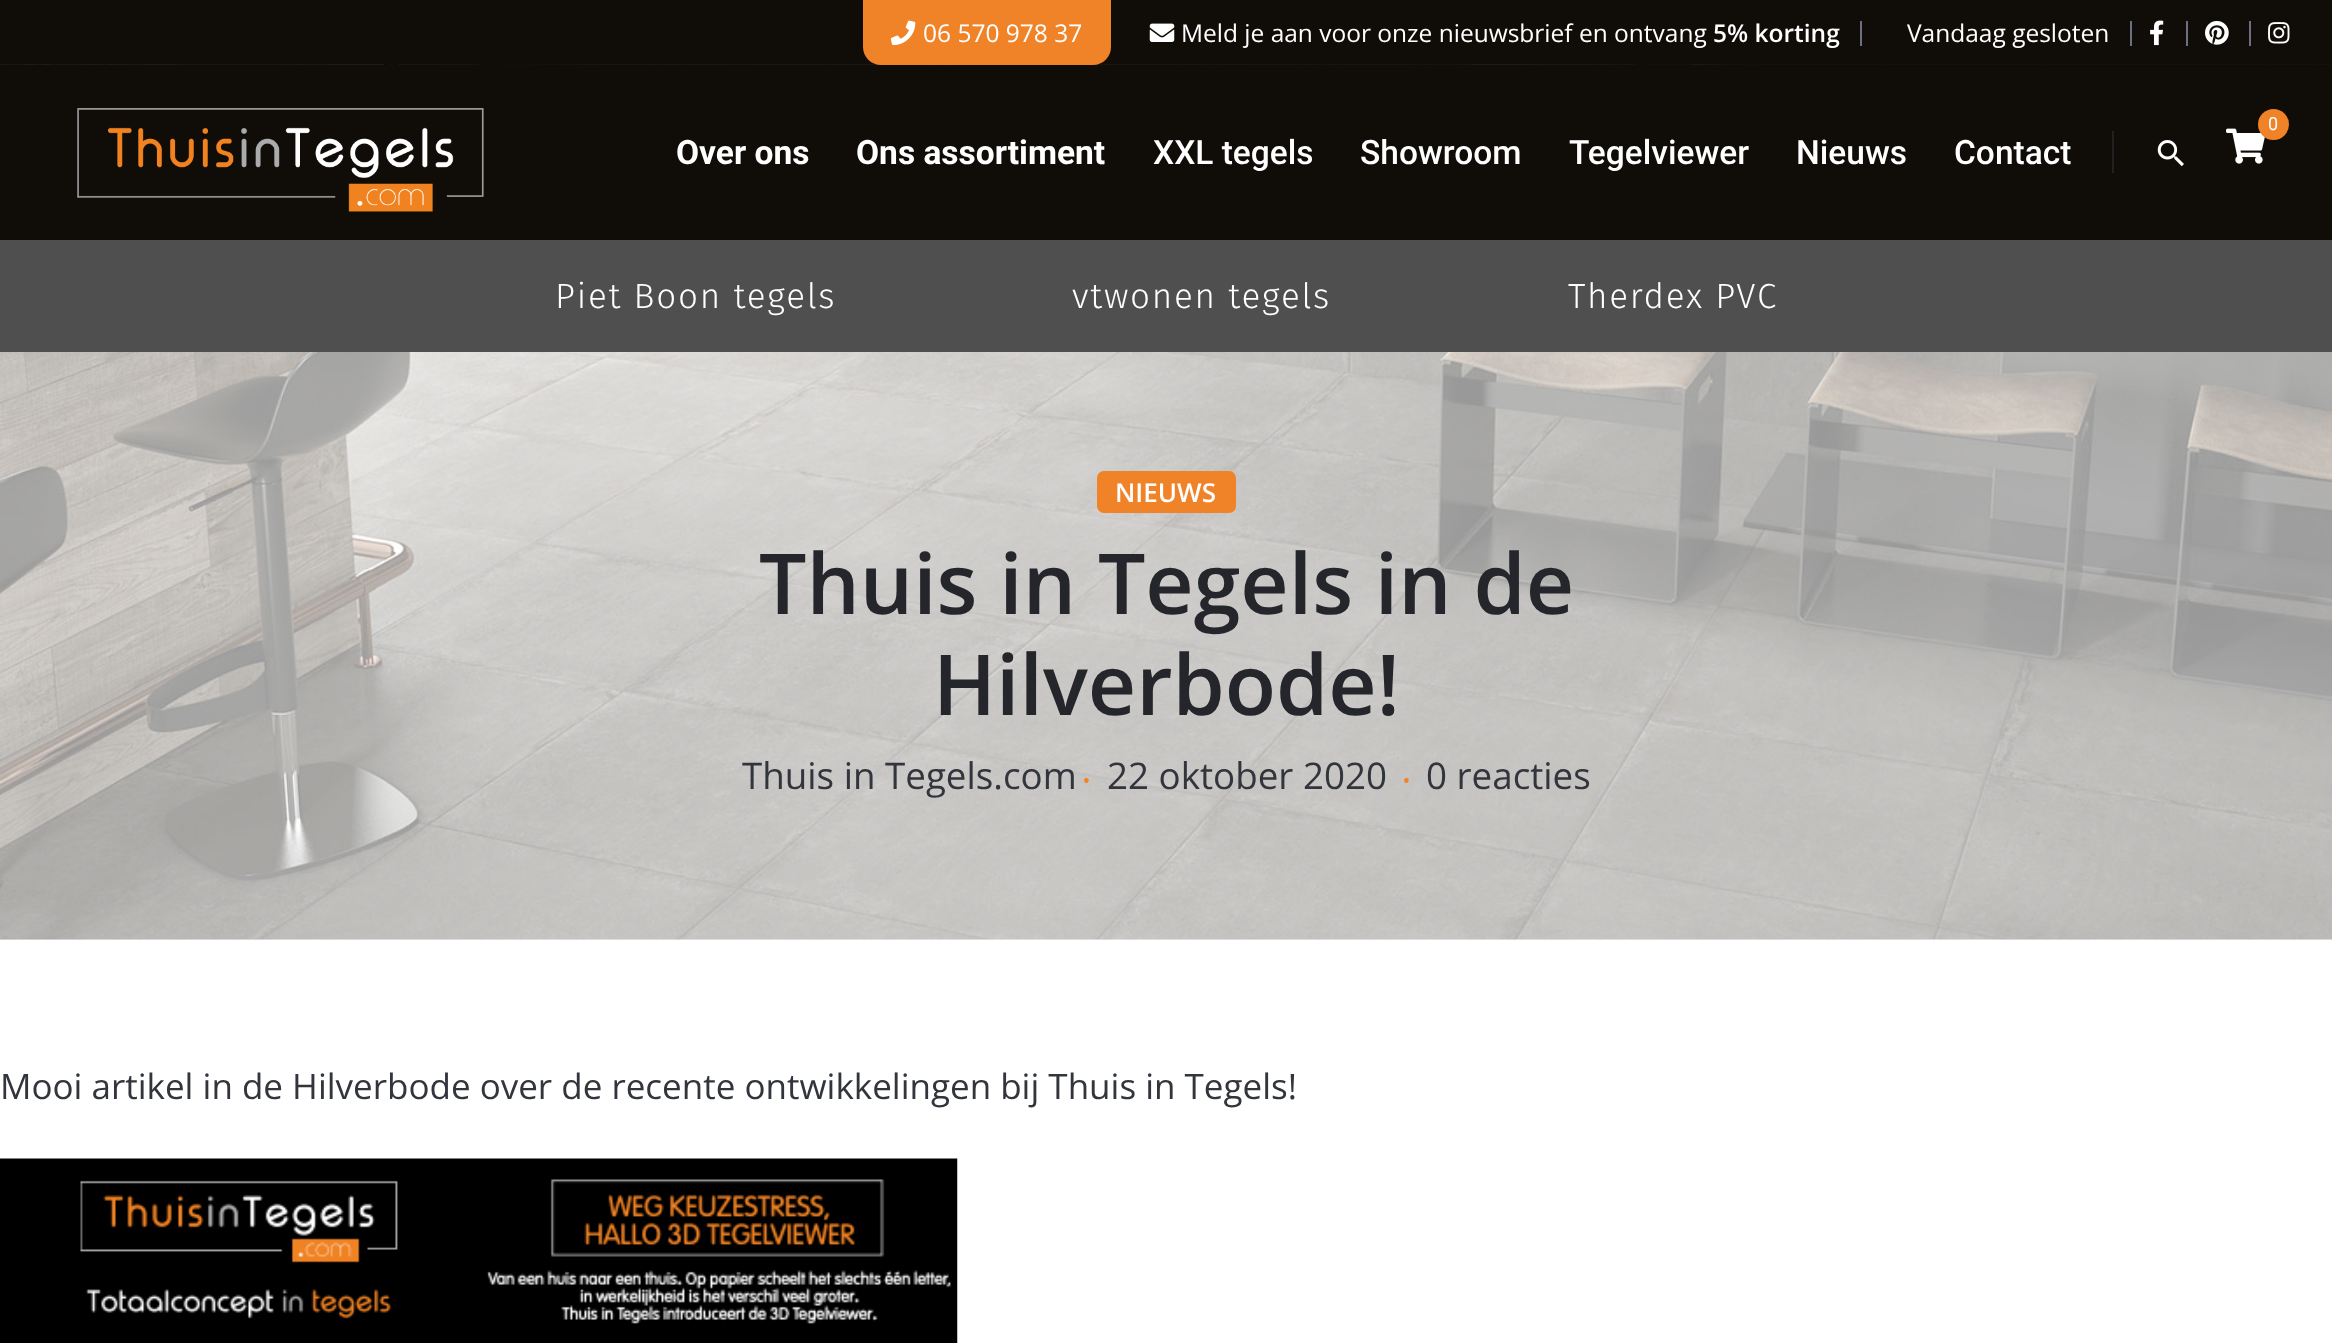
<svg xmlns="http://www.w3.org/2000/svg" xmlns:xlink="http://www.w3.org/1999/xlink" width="2332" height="1343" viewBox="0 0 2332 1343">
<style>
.cls-1{font:24.5px Open Sans;fill:#ffffff}
.cls-2{font:600 24.5px Open Sans;fill:#ffffff}
.cls-3{font:18px Roboto;fill:#ffffff}
.cls-4{font:bold 33.5px Roboto;fill:#ffffff}
.cls-5{font:500 33.5px Roboto;fill:#ffffff}
.cls-6{font:300 35px Fira Sans;letter-spacing:1.75px;fill:#ffffff}
.cls-7{font:600 26px Open Sans;fill:#ffffff}
.cls-8{font:600 84px Open Sans;fill:#24262b}
.cls-9{font:36.75px Open Sans;fill:#32353c}
.cls-10{font:600 18px Open Sans;fill:#f08227}
.cls-11{font:35px Open Sans;fill:#32353c}
</style>
<rect width="100%" height="100%" fill="#ffffff"/>
<rect fill="#100c08" x="0" y="0" width="2332" height="65"/>
<path fill="#f08227" d="M863 0H1111V47C1111 57 1103 65 1093 65H881C871 65 863 57 863 47Z"/>
<image xlink:href="image0.png" x="890" y="20" width="26" height="26"/>
<image xlink:href="image1.png" x="1149" y="23" width="26" height="19"/>
<rect fill="#6a707e" x="1860" y="21" width="2" height="25"/>
<rect fill="#6a707e" x="2130" y="21" width="2" height="25"/>
<image xlink:href="image2.png" x="2150" y="20" width="14" height="26"/>
<rect fill="#6a707e" x="2186" y="21" width="2" height="25"/>
<image xlink:href="image3.png" x="2205" y="20" width="24" height="25"/>
<rect fill="#6a707e" x="2249" y="21" width="2" height="25"/>
<image xlink:href="image4.png" x="2268" y="22" width="22" height="22"/>
<image xlink:href="image8.png" x="0" y="64" width="2332" height="876"/>
<rect fill="#100c08" x="0" y="65" width="2332" height="175"/>
<image xlink:href="image5.png" x="77" y="108" width="407" height="104"/>
<image xlink:href="image6.png" x="2226" y="128" width="39" height="36"/>
<circle fill="#f08227" cx="2273.5" cy="124.5" r="15.5"/>
<image xlink:href="image7.png" x="2157" y="140" width="27" height="27"/>
<rect fill="#212122" x="2112" y="131" width="2" height="42"/>
<rect fill="#4f4f4f" x="0" y="240" width="2332" height="112"/>
<rect fill="#f08227" x="1097" y="471" width="139" height="42" rx="7"/>
<image xlink:href="image9.png" x="0" y="1158" width="958" height="185"/>
<text class="cls-1" x="923" y="42">06 570 978 37</text>
<text class="cls-1" x="1181" y="42">Meld je aan voor onze nieuwsbrief en ontvang</text>
<text class="cls-2" x="1713" y="42">5% korting</text>
<text class="cls-1" x="1907" y="42">Vandaag gesloten</text>
<text class="cls-3" x="2268" y="130">0</text>
<text class="cls-4" x="676" y="164">Over ons</text>
<text class="cls-4" x="856" y="164">Ons assortiment</text>
<text class="cls-5" x="1153" y="164">XXL tegels</text>
<text class="cls-5" x="1360" y="164">Showroom</text>
<text class="cls-5" x="1569" y="164">Tegelviewer</text>
<text class="cls-5" x="1796" y="164">Nieuws</text>
<text class="cls-5" x="1954" y="164">Contact</text>
<text class="cls-6" x="555" y="308">Piet Boon tegels</text>
<text class="cls-6" x="1072" y="308">vtwonen tegels</text>
<text class="cls-6" x="1568" y="308">Therdex PVC</text>
<text class="cls-7" x="1115" y="502">NIEUWS</text>
<text class="cls-8" x="759" y="614">Thuis in Tegels in de</text>
<text class="cls-8" x="933" y="715">Hilverbode!</text>
<text class="cls-9" x="742" y="789">Thuis in Tegels.com</text>
<text class="cls-10" x="1083" y="787">•</text>
<text class="cls-9" x="1107" y="789">22 oktober 2020</text>
<text class="cls-10" x="1403" y="787">•</text>
<text class="cls-9" x="1426" y="789">0 reacties</text>
<text class="cls-11" x="0" y="1099">Mooi artikel in de Hilverbode over de recente ontwikkelingen bij Thuis in Tegels!</text>
</svg>
